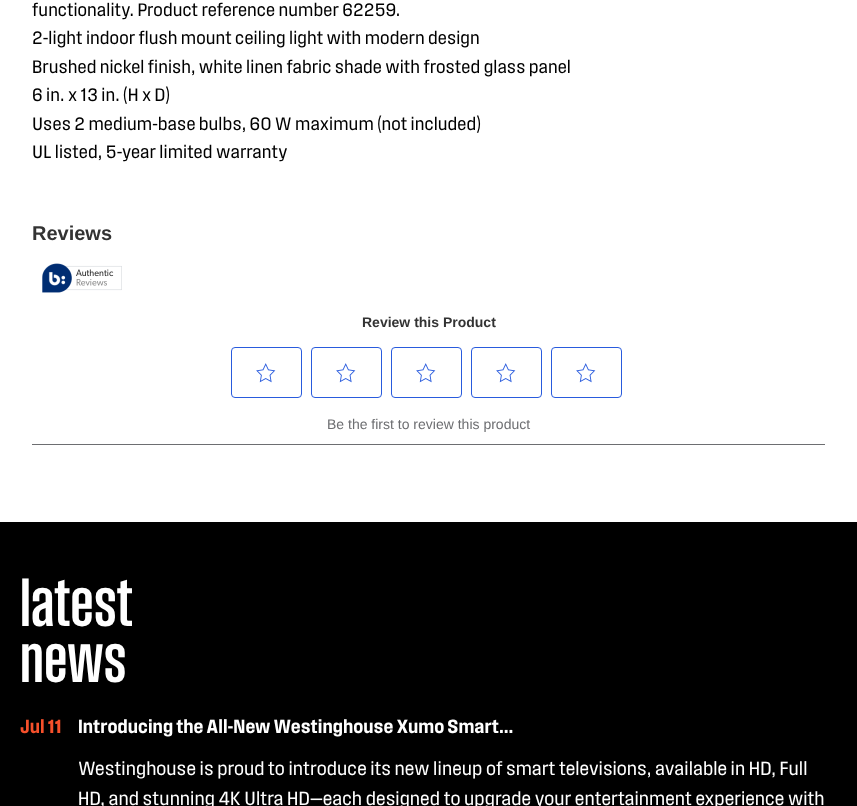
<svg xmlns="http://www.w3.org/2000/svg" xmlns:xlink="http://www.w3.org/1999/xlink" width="857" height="806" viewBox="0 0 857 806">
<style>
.cls-1{font:19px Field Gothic;fill:#000000}
.cls-2{font:bold 20px Liberation Sans;fill:#333333}
.cls-3{font:bold 14px Liberation Sans;fill:#333333}
.cls-4{font:14px Liberation Sans;fill:#6d6e71}
.cls-5{font:600 70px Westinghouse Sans;fill:#ffffff}
.cls-6{font:600 20px Field Gothic;fill:#f6502b}
.cls-7{font:600 20px Field Gothic;fill:#ffffff}
.cls-8{font:20px Field Gothic;fill:#ffffff}
</style>
<rect width="100%" height="100%" fill="#ffffff"/>
<image xlink:href="image0.png" x="42" y="263" width="80" height="30"/>
<rect fill="#6d6e71" x="32" y="444" width="793" height="1"/>
<rect fill="none" stroke="#295bdd" x="231.5" y="347.5" width="70" height="50" rx="3.5"/>
<image xlink:href="image1.png" x="256" y="363" width="20" height="20"/>
<rect fill="none" stroke="#295bdd" x="311.5" y="347.5" width="70" height="50" rx="3.5"/>
<image xlink:href="image1.png" x="336" y="363" width="20" height="20"/>
<rect fill="none" stroke="#295bdd" x="391.5" y="347.5" width="70" height="50" rx="3.5"/>
<image xlink:href="image1.png" x="416" y="363" width="20" height="20"/>
<rect fill="none" stroke="#295bdd" x="471.5" y="347.5" width="70" height="50" rx="3.5"/>
<image xlink:href="image1.png" x="496" y="363" width="20" height="20"/>
<rect fill="none" stroke="#295bdd" x="551.5" y="347.5" width="70" height="50" rx="3.5"/>
<image xlink:href="image1.png" x="576" y="363" width="20" height="20"/>
<rect fill="#000000" x="0" y="522" width="857" height="284"/>
<text class="cls-1"><tspan x="32" y="16">functionality. Product reference number 62259.</tspan><tspan x="32" y="44">2-light indoor flush mount ceiling light with modern design</tspan><tspan x="32" y="73">Brushed nickel finish, white linen fabric shade with frosted glass panel</tspan><tspan x="32" y="101">6 in. x 13 in. (H x D)</tspan><tspan x="32" y="130">Uses 2 medium-base bulbs, 60 W maximum (not included)</tspan><tspan x="32" y="158">UL listed, 5-year limited warranty</tspan></text>
<text class="cls-2" x="32" y="240">Reviews</text>
<text class="cls-3" x="362" y="327">Review this Product</text>
<text class="cls-4" x="327" y="429">Be the first to review this product</text>
<text class="cls-5"><tspan x="20" y="626">latest</tspan><tspan x="20" y="682">news</tspan></text>
<text class="cls-6" x="20" y="733">Jul 11</text>
<text class="cls-7" x="78" y="733">Introducing the All-New Westinghouse Xumo Smart...</text>
<text class="cls-8"><tspan x="78" y="775">Westinghouse is proud to introduce its new lineup of smart televisions, available in HD, Full</tspan><tspan x="78" y="805">HD, and stunning 4K Ultra HD—each designed to upgrade your entertainment experience with</tspan></text>
</svg>
